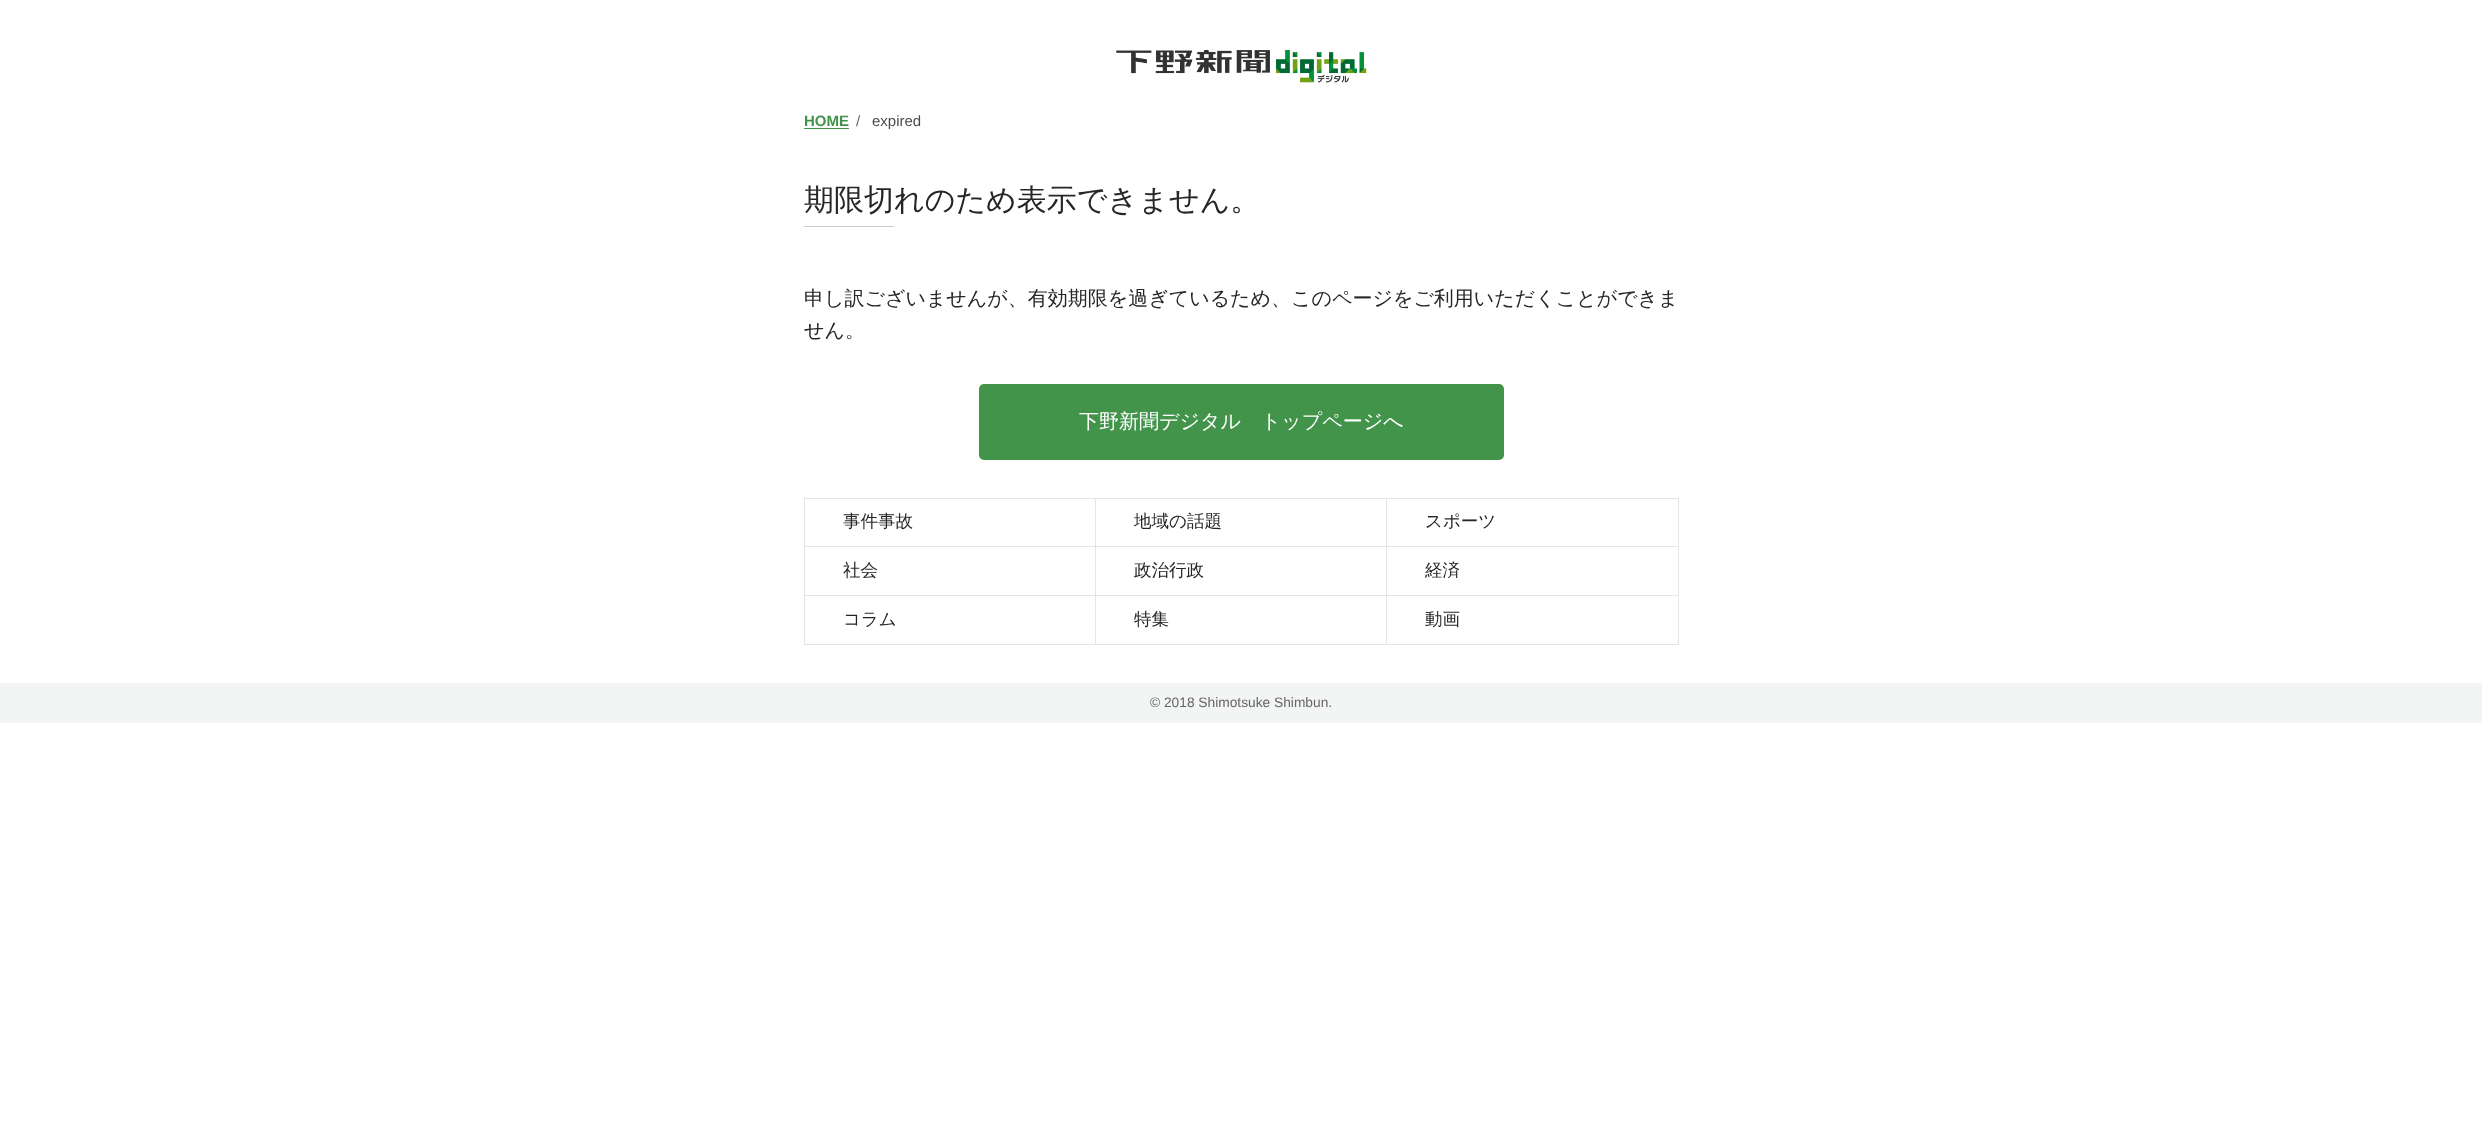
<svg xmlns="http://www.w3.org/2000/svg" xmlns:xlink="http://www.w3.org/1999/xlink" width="2482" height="1129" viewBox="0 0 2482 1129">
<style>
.cls-1{font:bold 15px Liberation Sans;fill:#43944b}
.cls-2{font:15px Liberation Sans;fill:#666666}
.cls-3{font:15px Liberation Sans;fill:#4c4c4c}
.cls-4{font:500 30px WenQuanYi Zen Hei;fill:#262626}
.cls-5{font:500 20px WenQuanYi Zen Hei;fill:#262626}
.cls-6{font:500 20px WenQuanYi Zen Hei;fill:#ffffff}
.cls-7{font:500 17.5px WenQuanYi Zen Hei;fill:#262626}
.cls-8{font:13.75px Liberation Sans;fill:#666666}
</style>
<rect width="100%" height="100%" fill="#ffffff"/>
<image xlink:href="image0.png" x="1116" y="50" width="251" height="33"/>
<rect fill="#43944b" x="804" y="128" width="45" height="1"/>
<rect fill="#cccccc" x="804" y="226" width="90" height="1"/>
<rect fill="#43944b" x="979" y="384" width="525" height="76" rx="5"/>
<rect fill="#e5e5e5" x="804" y="498" width="875" height="1"/>
<rect fill="#e5e5e5" x="804" y="498" width="1" height="147"/>
<rect fill="#e5e5e5" x="1095" y="499" width="1" height="146"/>
<rect fill="#e5e5e5" x="805" y="546" width="291" height="1"/>
<rect fill="#e5e5e5" x="1386" y="499" width="1" height="146"/>
<rect fill="#e5e5e5" x="1096" y="546" width="292" height="1"/>
<rect fill="#e5e5e5" x="1678" y="499" width="1" height="146"/>
<rect fill="#e5e5e5" x="1388" y="546" width="291" height="1"/>
<rect fill="#e5e5e5" x="805" y="595" width="874" height="1"/>
<rect fill="#e5e5e5" x="805" y="644" width="874" height="1"/>
<rect fill="#f2f5f3" x="0" y="683" width="2482" height="40"/>
<text class="cls-1" x="804" y="126">HOME</text>
<text class="cls-2" x="856" y="126">/</text>
<text class="cls-3" x="872" y="126">expired</text>
<text class="cls-4" x="804" y="210">期限切れのため表示できません。</text>
<text class="cls-5"><tspan x="804" y="305">申し訳ございませんが、有効期限を過ぎているため、このページをご利用いただくことができま</tspan><tspan x="804" y="337">せん。</tspan></text>
<text class="cls-6" x="1079" y="428">下野新聞デジタル　トップページへ</text>
<text class="cls-7" x="843" y="527">事件事故</text>
<text class="cls-7" x="1134" y="527">地域の話題</text>
<text class="cls-7" x="1425" y="527">スポーツ</text>
<text class="cls-7" x="843" y="576">社会</text>
<text class="cls-7" x="1134" y="576">政治行政</text>
<text class="cls-7" x="1425" y="576">経済</text>
<text class="cls-7" x="843" y="625">コラム</text>
<text class="cls-7" x="1134" y="625">特集</text>
<text class="cls-7" x="1425" y="625">動画</text>
<text class="cls-8" x="1150" y="707">© 2018 Shimotsuke Shimbun.</text>
</svg>
